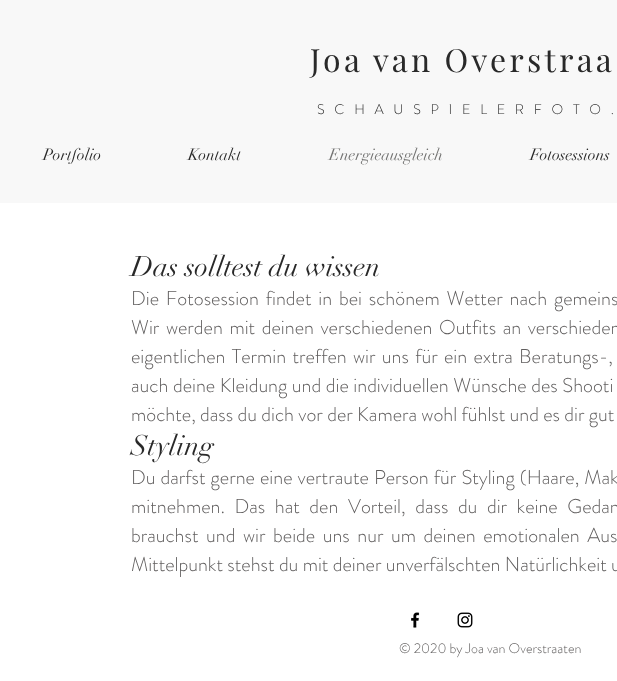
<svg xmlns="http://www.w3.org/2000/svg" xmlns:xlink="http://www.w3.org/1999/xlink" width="617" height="681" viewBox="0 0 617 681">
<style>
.cls-1{font:32px Playfair Display;letter-spacing:3.25px;fill:#292929}
.cls-2{font:300 14px 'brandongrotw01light';letter-spacing:9.75px;fill:#292929}
.cls-3{font:16px didot;fill:#292929}
.cls-4{font:16px didot;fill:#727271}
.cls-5{font:28px didot;fill:#292929}
.cls-6{font:300 20px 'brandongrotw01light';fill:#605e5e}
.cls-7{font:300 14px 'brandongrotw01light';fill:#605e5e}
</style>
<rect width="100%" height="100%" fill="#ffffff"/>
<rect fill="#f8f8f8" x="0" y="0" width="617" height="203"/>
<image xlink:href="image0.png" x="411" y="612" width="9" height="16"/>
<image xlink:href="image1.png" x="457" y="612" width="16" height="16"/>
<text class="cls-1" x="310" y="72">Joa van Overstraa</text>
<text class="cls-2" x="317" y="114">SCHAUSPIELERFOTO.</text>
<text class="cls-3" x="43" y="160">Portfolio</text>
<text class="cls-3" x="188" y="160">Kontakt</text>
<text class="cls-4" x="329" y="160">Energieausgleich</text>
<text class="cls-3" x="530" y="160">Fotosessions</text>
<text class="cls-5" x="131" y="276">Das solltest du wissen</text>
<text class="cls-6"><tspan x="131" y="305" word-spacing="2.5">Die Fotosession findet in bei schönem Wetter nach gemeins</tspan><tspan x="131" y="334" word-spacing="2.25">Wir werden mit deinen verschiedenen Outfits an verschieden</tspan><tspan x="131" y="363" word-spacing="2">eigentlichen Termin treffen wir uns für ein extra Beratungs-,</tspan><tspan x="131" y="392" word-spacing="0.25">auch deine Kleidung und die individuellen Wünsche des Shooti</tspan><tspan x="131" y="421">möchte, dass du dich vor der Kamera wohl fühlst und es dir gut</tspan></text>
<text class="cls-5" x="131" y="455">Styling</text>
<text class="cls-6"><tspan x="131" y="484" word-spacing="0.75">Du darfst gerne eine vertraute Person für Styling (Haare, Mak</tspan><tspan x="131" y="513" word-spacing="5.25">mitnehmen. Das hat den Vorteil, dass du dir keine Gedan</tspan><tspan x="131" y="542" word-spacing="3.25">brauchst und wir beide uns nur um deinen emotionalen Aus</tspan><tspan x="131" y="571">Mittelpunkt stehst du mit deiner unverfälschten Natürlichkeit u</tspan></text>
<text class="cls-7" x="399" y="653">© 2020 by Joa van Overstraaten</text>
</svg>
